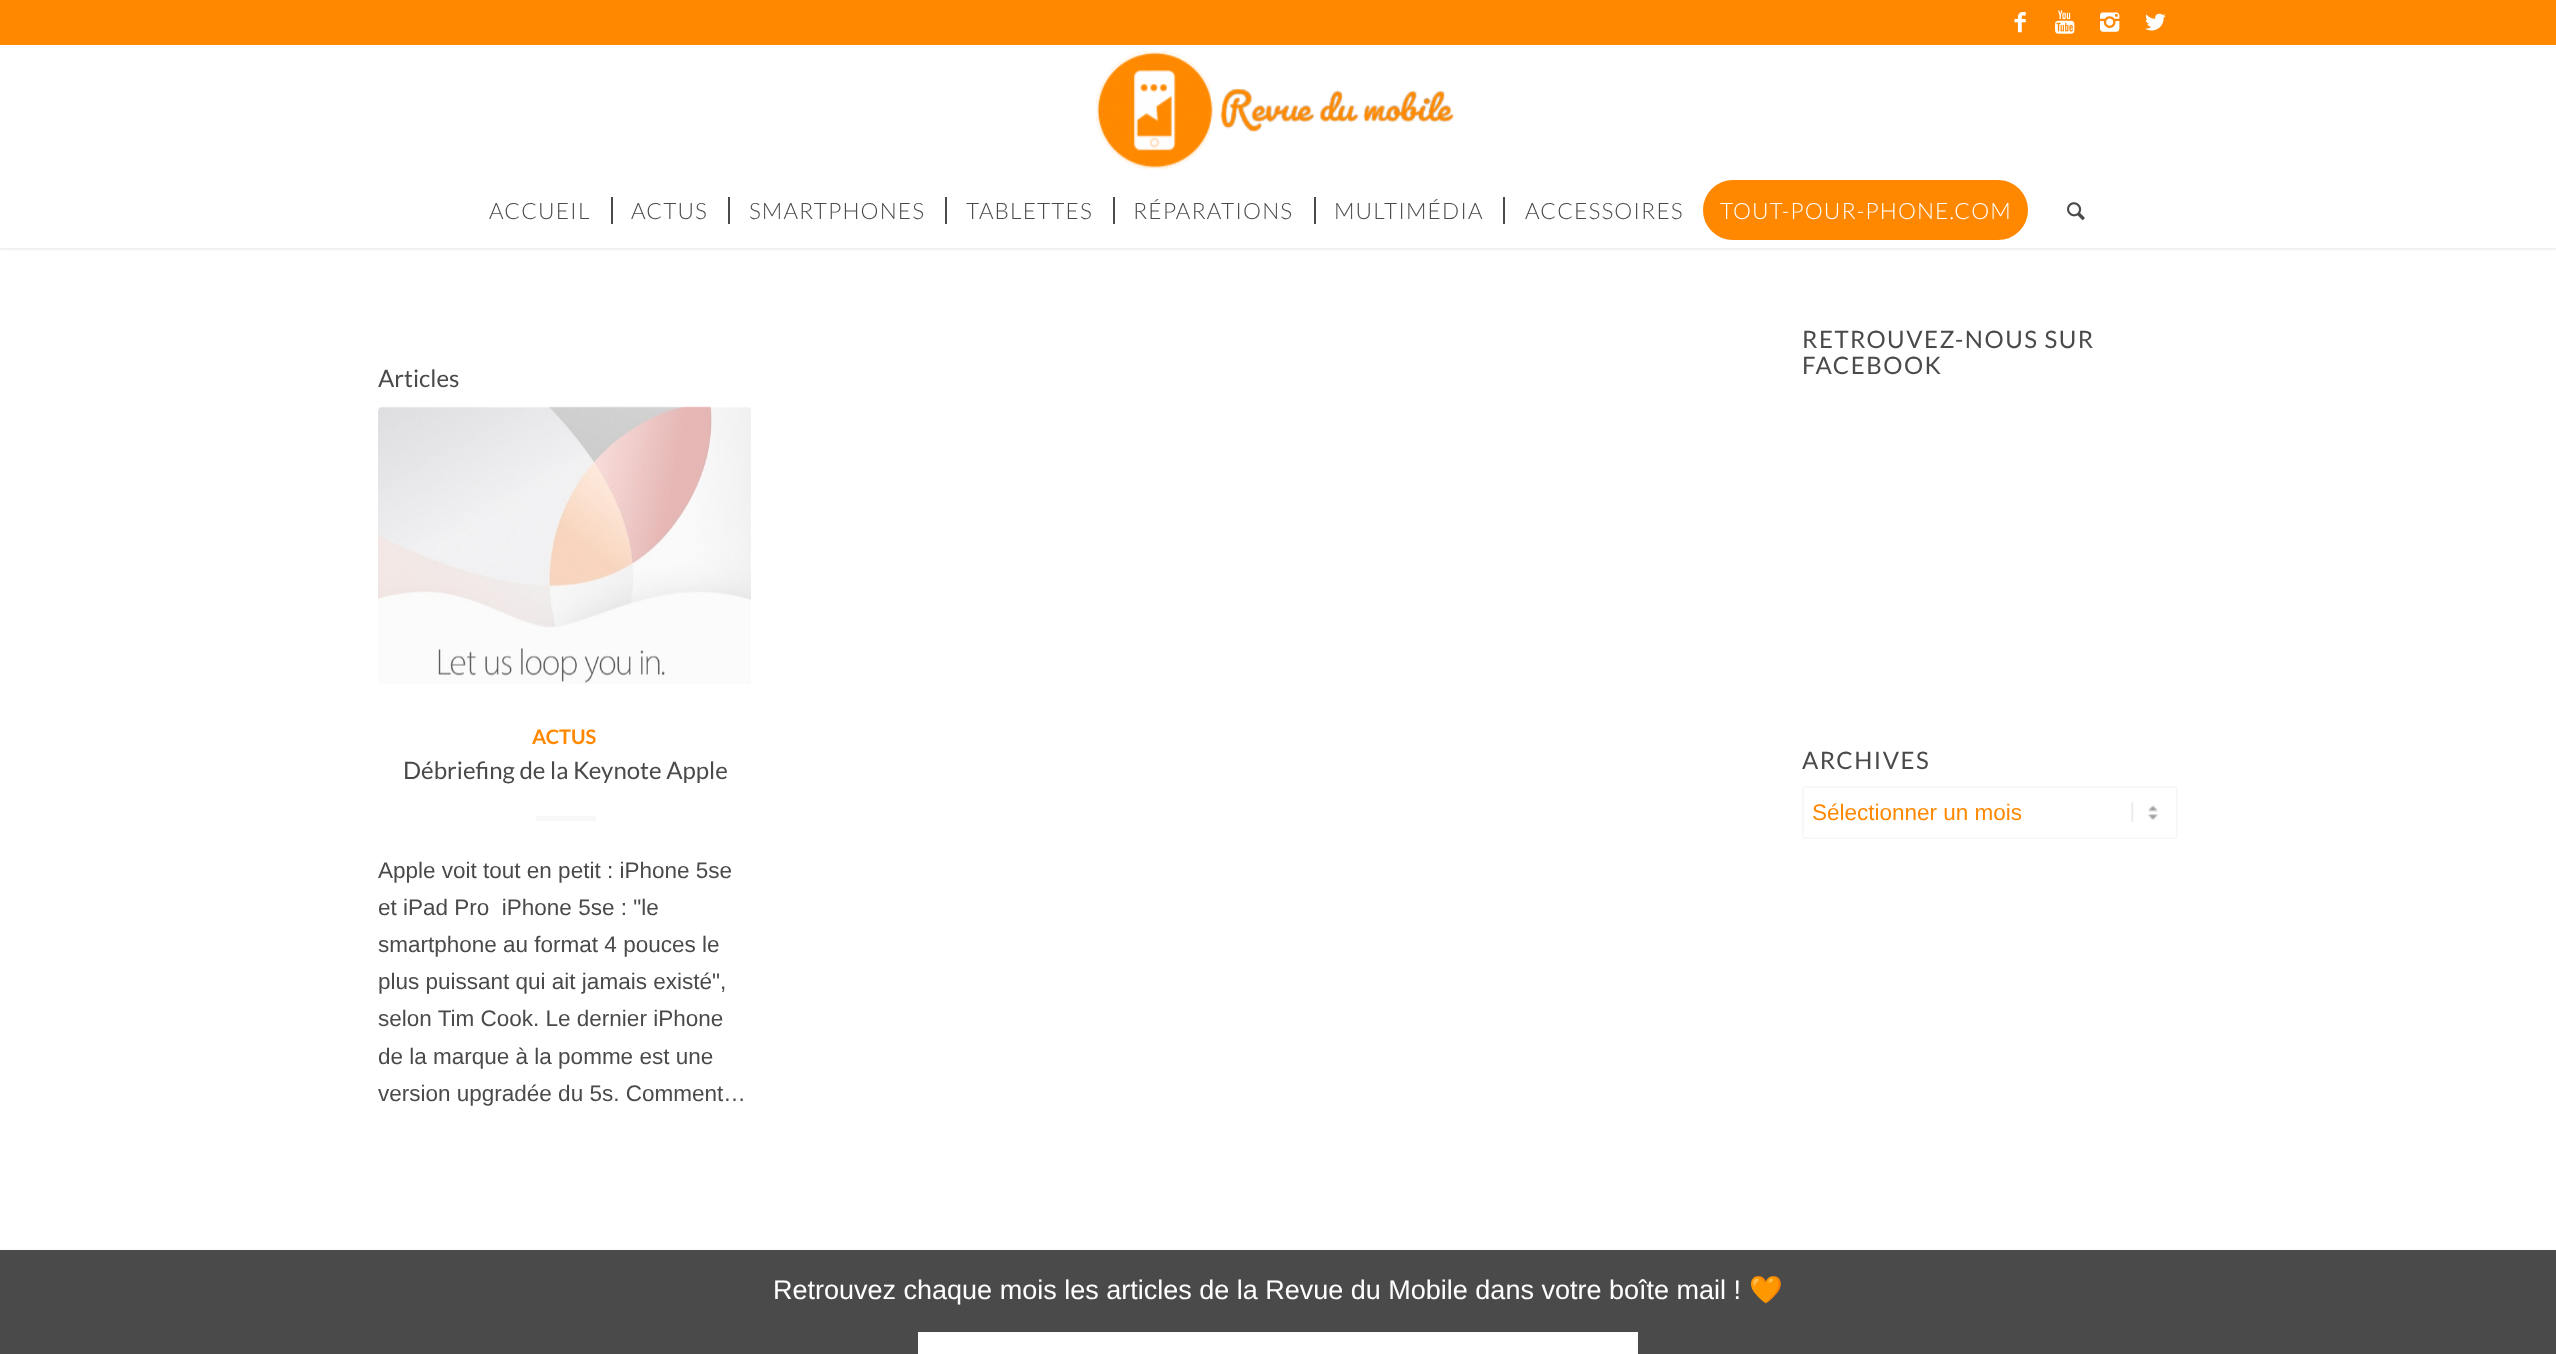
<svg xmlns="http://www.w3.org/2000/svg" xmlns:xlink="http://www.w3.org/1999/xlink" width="2556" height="1354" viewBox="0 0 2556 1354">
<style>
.cls-1{font:300 22.5px Lato;letter-spacing:1.1px;fill:#4a4a4a}
.cls-2{font:300 22.5px Lato;letter-spacing:1.1px;fill:#ffffff}
.cls-3{font:24px Lato;fill:#4a4a4a}
.cls-4{font:bold 20px Lato;fill:#ff8800}
.cls-5{font:22.5px Liberation Sans;fill:#4a4a4a}
.cls-6{font:24px Lato;letter-spacing:1.5px;fill:#4a4a4a}
.cls-7{font:22.5px Liberation Sans;fill:#ff8800}
.cls-8{font:27px Liberation Sans;fill:#ffffff}
.cls-9{font:27px Noto Color Emoji;fill:#ffffff}
</style>
<rect width="100%" height="100%" fill="#ffffff"/>
<rect fill="#000000" fill-opacity="0.1" filter="blur(1.5px)" x="-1" y="-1" width="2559" height="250"/>
<rect fill="#ff8800" x="0" y="0" width="2556" height="45"/>
<image xlink:href="image0.png" x="2014" y="12" width="12" height="21"/>
<image xlink:href="image1.png" x="2055" y="10" width="20" height="24"/>
<image xlink:href="image2.png" x="2100" y="12" width="20" height="20"/>
<image xlink:href="image3.png" x="2145" y="13" width="21" height="18"/>
<rect fill="#ffffff" x="0" y="45" width="2556" height="203"/>
<image xlink:href="image4.png" x="1096" y="51" width="359" height="119"/>
<rect fill="#4a4a4a" x="611" y="197" width="2" height="27"/>
<rect fill="#4a4a4a" x="728" y="197" width="2" height="27"/>
<rect fill="#4a4a4a" x="945" y="197" width="2" height="27"/>
<rect fill="#4a4a4a" x="1113" y="197" width="2" height="27"/>
<rect fill="#4a4a4a" x="1314" y="197" width="2" height="27"/>
<rect fill="#4a4a4a" x="1503" y="197" width="2" height="27"/>
<rect fill="#ff8800" stroke="#ff8800" stroke-width="3" x="1704.5" y="181.5" width="322" height="57" rx="28.5"/>
<image xlink:href="image5.png" x="2067" y="202" width="18" height="18"/>
<image xlink:href="image6.png" x="378" y="406" width="373" height="278"/>
<rect fill="#f8f8f8" x="536" y="816" width="60" height="5"/>
<image xlink:href="image7.png" x="2131" y="802" width="27" height="20"/>
<rect fill="none" stroke="#f8f8f8" stroke-width="2" x="1803" y="787" width="374" height="51" rx="2"/>
<rect fill="#4a4a4a" x="0" y="1250" width="2556" height="104"/>
<rect fill="#fcfcfc" x="0" y="1248" width="2556" height="2"/>
<rect fill="#ffffff" stroke="#fcfcfc" stroke-width="2" x="919" y="1333" width="718" height="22"/>
<text class="cls-1" x="489" y="219">ACCUEIL</text>
<text class="cls-1" x="631" y="219">ACTUS</text>
<text class="cls-1" x="749" y="219">SMARTPHONES</text>
<text class="cls-1" x="966" y="219">TABLETTES</text>
<text class="cls-1" x="1133" y="219">RÉPARATIONS</text>
<text class="cls-1" x="1334" y="219">MULTIMÉDIA</text>
<text class="cls-1" x="1525" y="219">ACCESSOIRES</text>
<text class="cls-2" x="1720" y="219">TOUT-POUR-PHONE.COM</text>
<text class="cls-3" x="378" y="387">Articles</text>
<text class="cls-4" x="532" y="744">ACTUS</text>
<text class="cls-3" x="403" y="779">Débriefing de la Keynote Apple</text>
<text class="cls-5" xml:space="preserve"><tspan x="378" y="878">Apple voit tout en petit : iPhone 5se</tspan><tspan x="378" y="915">et iPad Pro  iPhone 5se : "le</tspan><tspan x="378" y="952">smartphone au format 4 pouces le</tspan><tspan x="378" y="989">plus puissant qui ait jamais existé",</tspan><tspan x="378" y="1026">selon Tim Cook. Le dernier iPhone</tspan><tspan x="378" y="1064">de la marque à la pomme est une</tspan><tspan x="378" y="1101">version upgradée du 5s. Comment…</tspan></text>
<text class="cls-6"><tspan x="1802" y="348">RETROUVEZ-NOUS SUR</tspan><tspan x="1802" y="374">FACEBOOK</tspan></text>
<text class="cls-6" x="1802" y="769">ARCHIVES</text>
<text class="cls-7" x="1812" y="820">Sélectionner un mois</text>
<text class="cls-8" x="773" y="1299">Retrouvez chaque mois les articles de la Revue du Mobile dans votre boîte mail !</text>
<text class="cls-9" x="1749" y="1299">🧡</text>
</svg>
